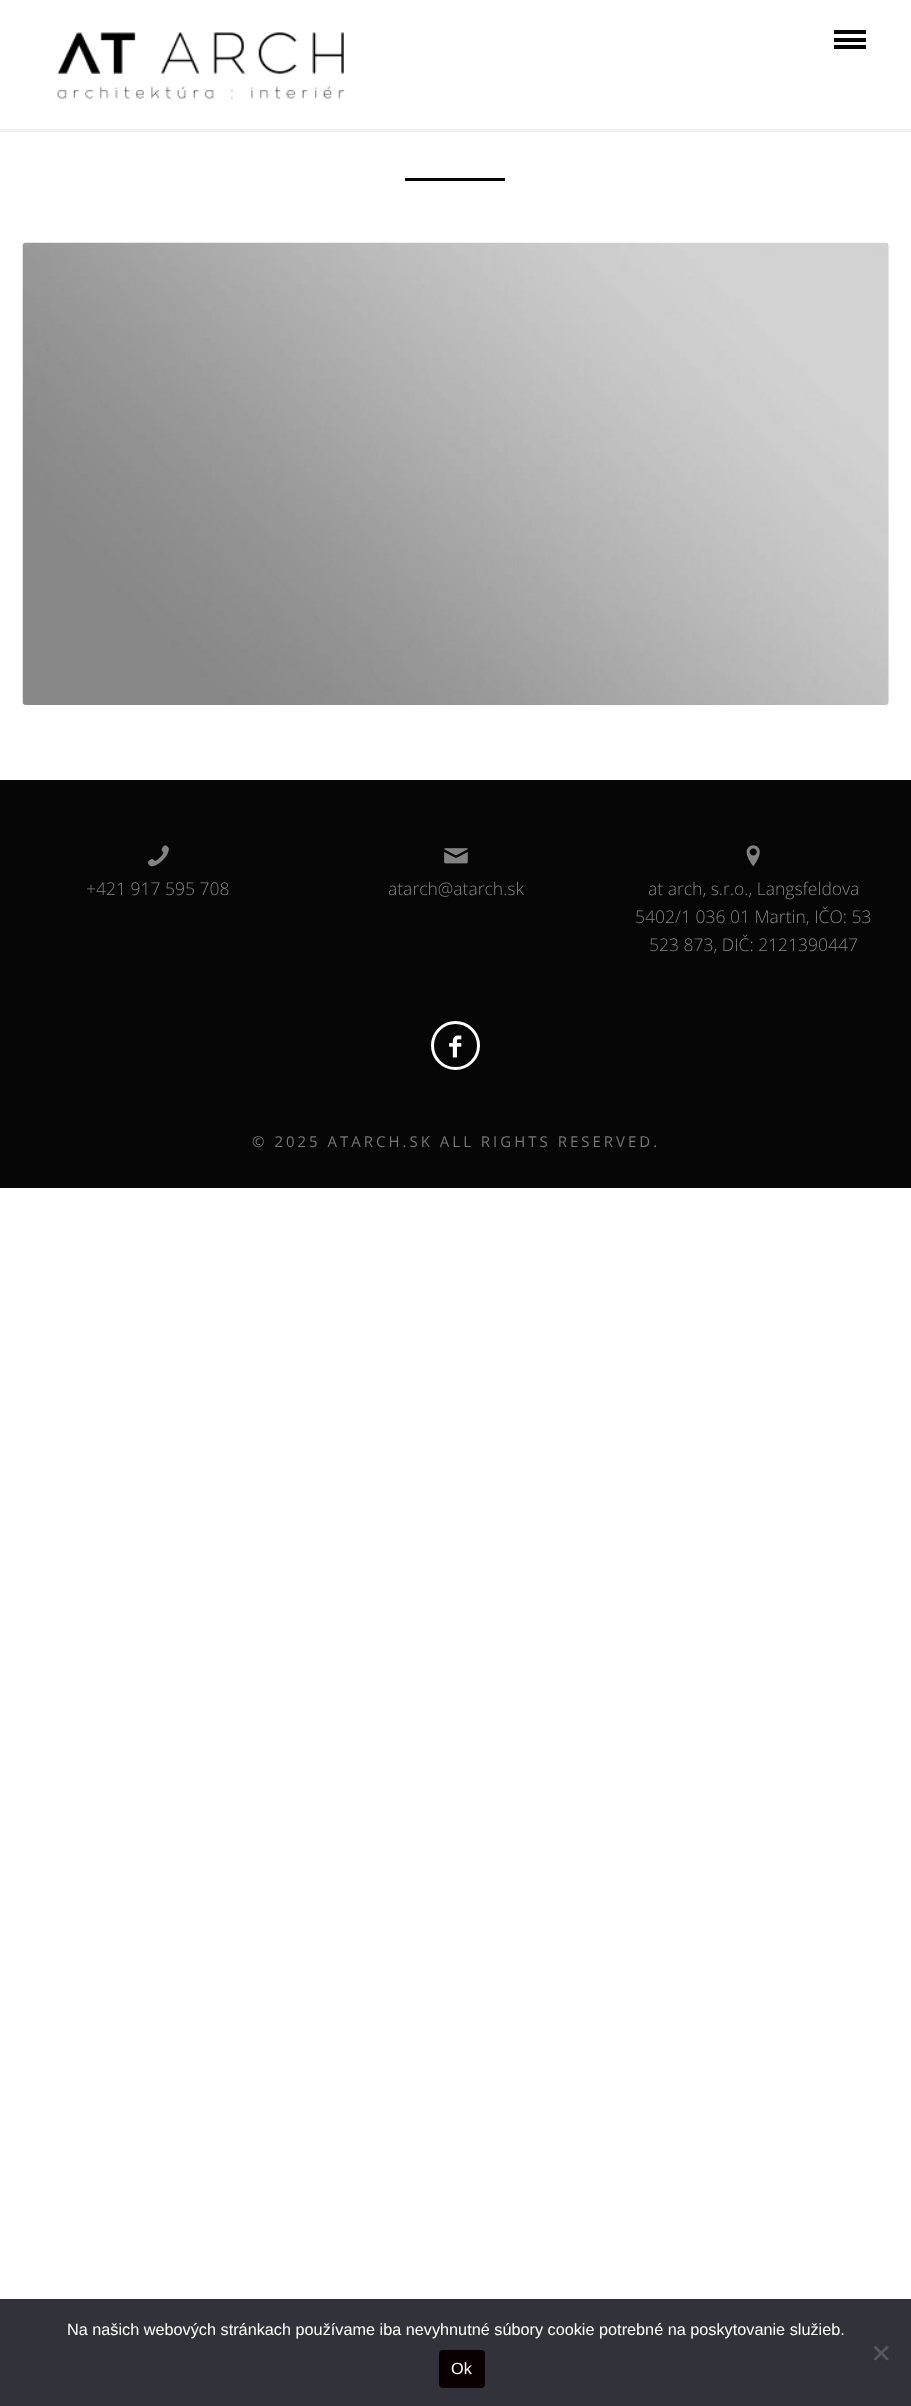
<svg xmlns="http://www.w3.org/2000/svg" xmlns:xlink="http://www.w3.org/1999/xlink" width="911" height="2406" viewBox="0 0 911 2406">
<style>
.cls-1{font:300 17.5px Open Sans;fill:#838383}
.cls-2{font:15px Open Sans;letter-spacing:3px;fill:#77777a}
.cls-3{font:16.25px Liberation Sans;fill:#ffffff}
</style>
<rect width="100%" height="100%" fill="#ffffff"/>
<rect fill="#f0f0f0" x="0" y="129" width="911" height="3"/>
<image xlink:href="image0.png" x="57" y="32" width="288" height="67"/>
<rect fill="#060606" x="834" y="30" width="32" height="4"/>
<rect fill="#060606" x="834" y="38" width="32" height="4"/>
<rect fill="#060606" x="834" y="45" width="32" height="4"/>
<rect fill="#060606" x="405" y="178" width="100" height="3"/>
<image xlink:href="image1.png" x="22" y="242" width="867" height="463"/>
<rect fill="#060606" x="0" y="780" width="911" height="408"/>
<image xlink:href="image2.png" x="147" y="845" width="22" height="22"/>
<image xlink:href="image3.png" x="444" y="848" width="24" height="16"/>
<image xlink:href="image4.png" x="746" y="845" width="14" height="22"/>
<circle fill="none" stroke="#ffffff" stroke-width="3" cx="455.5" cy="1045.5" r="23"/>
<image xlink:href="image5.png" x="449" y="1035" width="13" height="23"/>
<rect fill="#32323a" x="0" y="2299" width="911" height="107"/>
<path fill="#59595d" d="M887 2345.5L889 2347.5L875.5 2360.5L873.5 2359Z"/>
<path fill="#59595d" d="M873.5 2347.5L875.5 2345.5L889 2359L887 2360.5Z"/>
<rect fill="#0a0000" x="439" y="2350" width="46" height="38" rx="4"/>
<text class="cls-1" x="86" y="895">+421 917 595 708</text>
<text class="cls-1" x="388" y="895">atarch@atarch.sk</text>
<text class="cls-1" x="648" y="895">at arch, s.r.o., Langsfeldova</text>
<text class="cls-1" x="635" y="923">5402/1 036 01 Martin, IČO: 53</text>
<text class="cls-1" x="649" y="951">523 873, DIČ: 2121390447</text>
<text class="cls-2" x="252" y="1147">© 2025 ATARCH.SK ALL RIGHTS RESERVED.</text>
<text class="cls-3" x="67" y="2335">Na našich webových stránkach používame iba nevyhnutné súbory cookie potrebné na poskytovanie služieb.</text>
<text class="cls-3" x="451" y="2374">Ok</text>
</svg>
